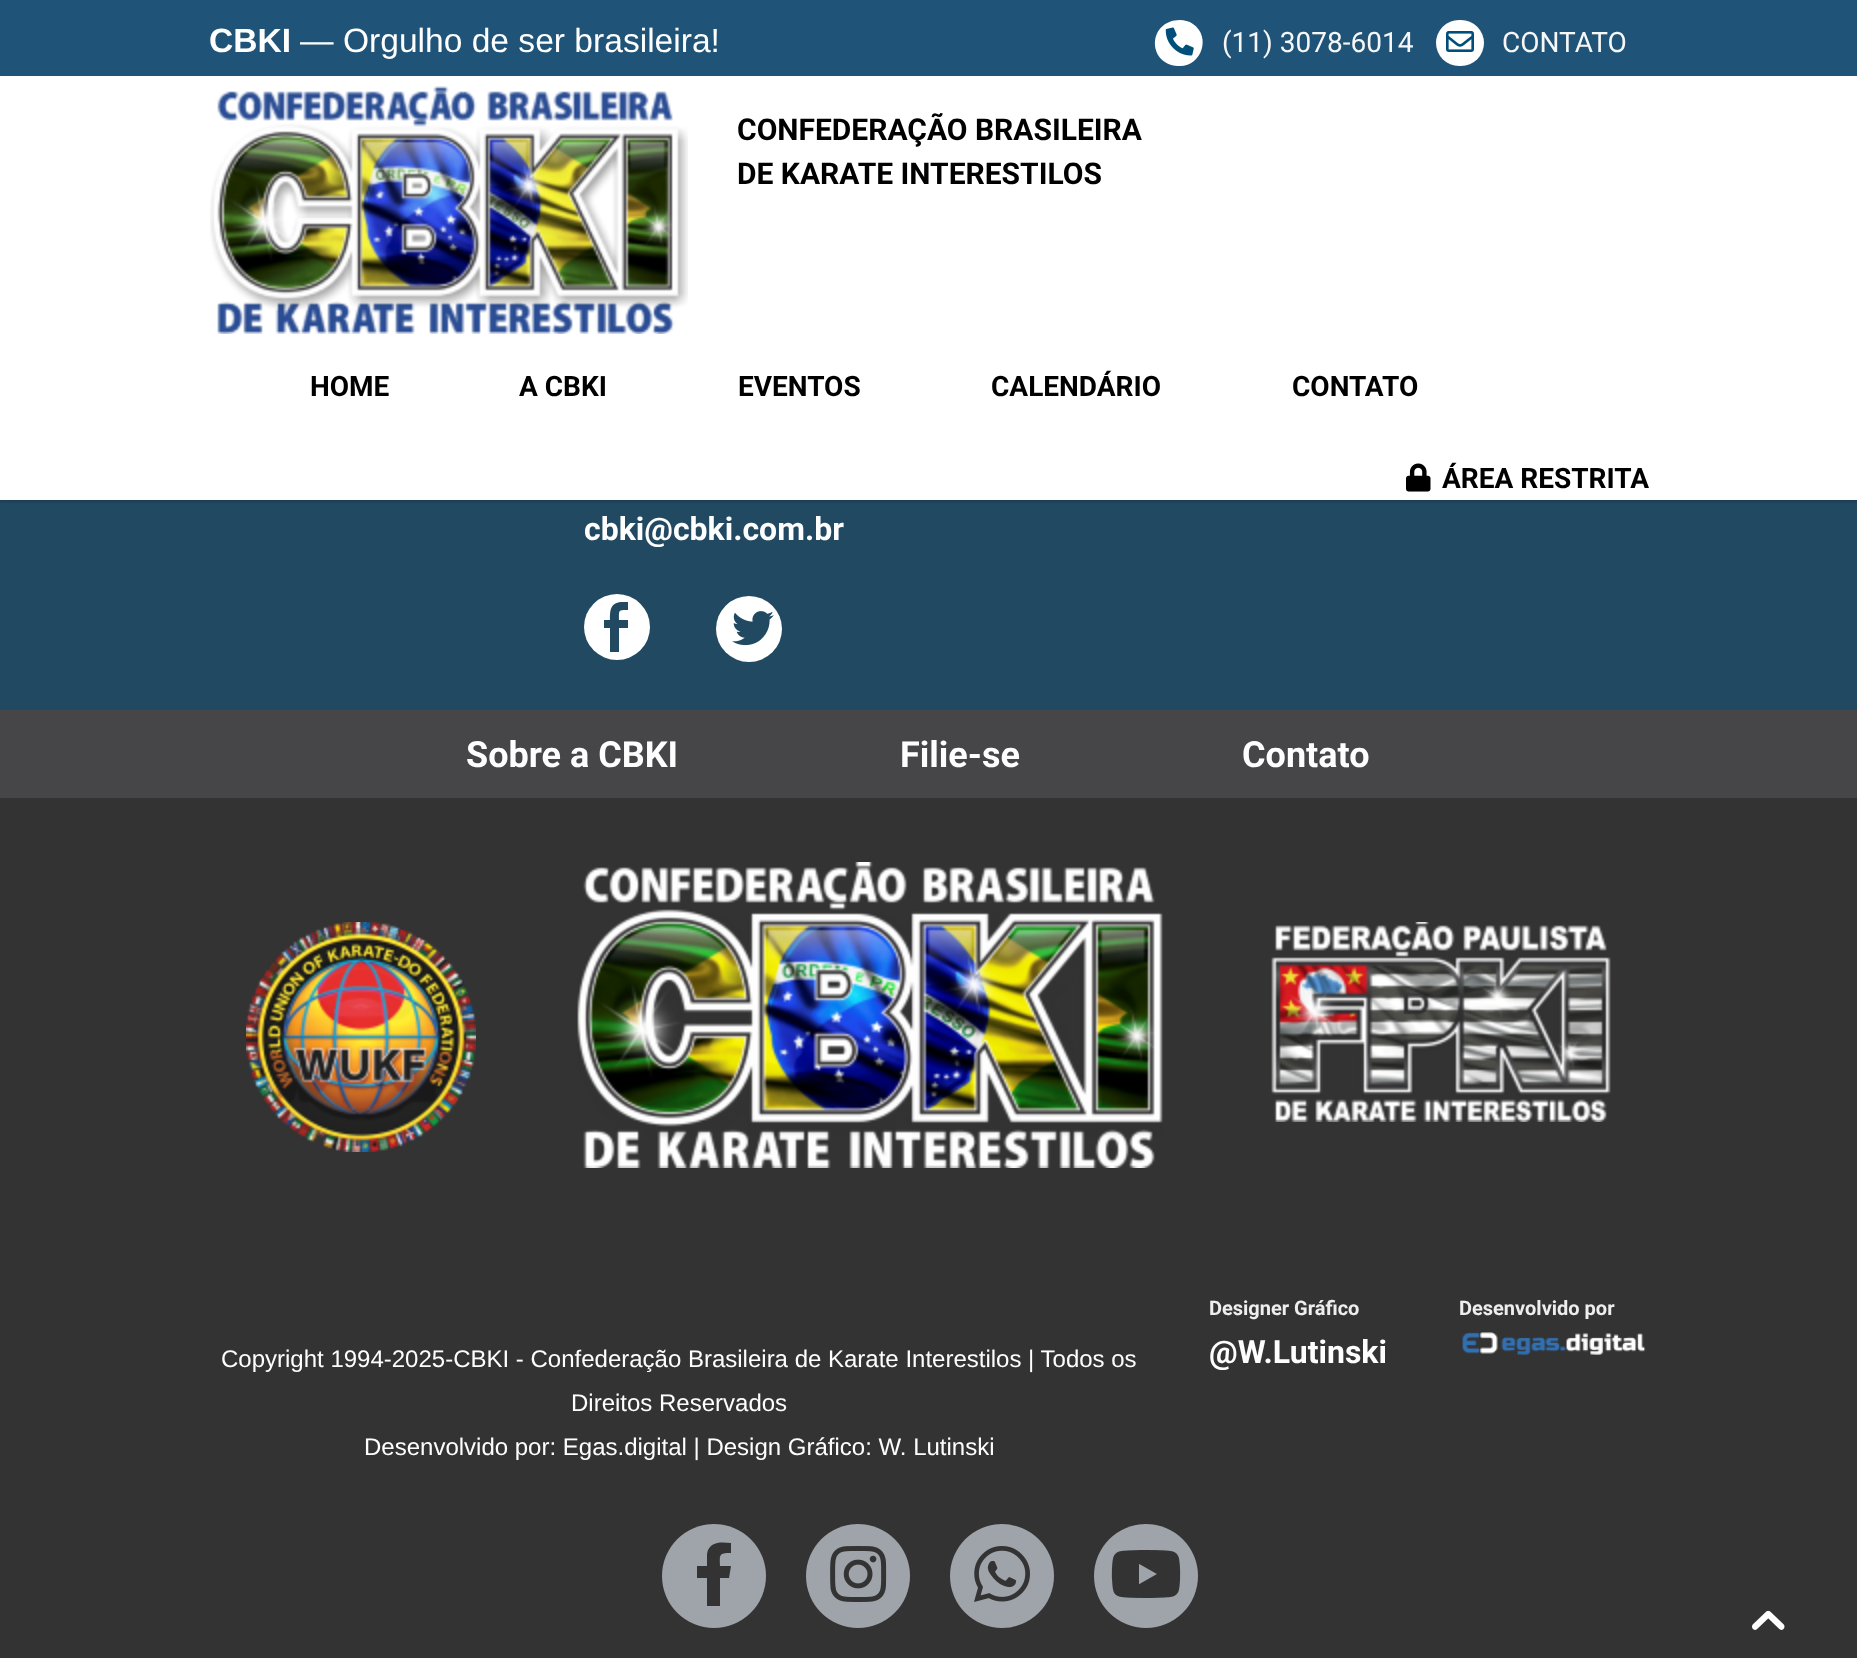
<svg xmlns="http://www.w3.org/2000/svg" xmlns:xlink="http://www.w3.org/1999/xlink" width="1857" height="1658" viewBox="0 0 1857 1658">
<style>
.cls-1{font:bold 33.6px Liberation Sans;fill:#fefefe}
.cls-2{font:33.6px Liberation Sans;fill:#fefefe}
.cls-3{font:28px Roboto;fill:#f7f7f7}
.cls-4{font:bold 30px Roboto;fill:#000000}
.cls-5{font:bold 28px Roboto;fill:#000000}
.cls-6{font:bold 32px Roboto;fill:#fefefe}
.cls-7{font:bold 36px Roboto;fill:#fefefe}
.cls-8{font:bold 20px Roboto;fill:#eeeeee}
.cls-9{font:24px Liberation Sans;fill:#fefefe}
</style>
<rect width="100%" height="100%" fill="#214962"/>
<rect fill="#1f5377" x="0" y="0" width="1857" height="76"/>
<path fill="#ffffff" d="M1180 20C1148 20 1146 64 1178 66C1201 68 1212 37 1193 24C1189 21 1184 20 1180 20Z"/>
<image xlink:href="image0.png" x="1165" y="27" width="29" height="29"/>
<rect fill="#ffffff" x="1436" y="20" width="48" height="46" rx="23"/>
<image xlink:href="image1.png" x="1446" y="31" width="28" height="21"/>
<rect fill="#000000" fill-opacity="0.15" filter="blur(1px)" x="0" y="78" width="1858" height="424"/>
<rect fill="#ffffff" x="0" y="76" width="1857" height="424"/>
<image xlink:href="image2.png" x="210" y="86" width="478" height="248"/>
<image xlink:href="image3.png" x="1406" y="463" width="25" height="29"/>
<circle fill="#ffffff" cx="617" cy="627" r="33"/>
<path fill="#214962" d="M610 652V628H604V620H610C610 611 610 603 621 602H628V610C618 610 619 610 619 620H628V628H619V652Z"/>
<circle fill="#ffffff" cx="749" cy="629" r="33"/>
<image xlink:href="image4.png" x="732" y="611" width="42" height="35"/>
<rect fill="#464649" x="0" y="710" width="1857" height="88"/>
<rect fill="#333333" x="0" y="798" width="1857" height="860"/>
<image xlink:href="image5.png" x="246" y="922" width="230" height="230"/>
<image xlink:href="image6.png" x="577" y="862" width="586" height="306"/>
<image xlink:href="image7.png" x="1271" y="922" width="340" height="200"/>
<image xlink:href="image8.png" x="1462" y="1332" width="184" height="23"/>
<circle fill="#9fa4aa" cx="714" cy="1576" r="52"/>
<path fill="#333333" d="M729 1578H720V1606H707V1578H697V1566H707V1554C709 1541 721 1542 731 1543V1553C718 1553 720 1555 720 1566H731Z"/>
<circle fill="#9fa4aa" cx="858" cy="1576" r="52"/>
<image xlink:href="image9.png" x="830" y="1546" width="57" height="56"/>
<circle fill="#9fa4aa" cx="1002" cy="1576" r="52"/>
<image xlink:href="image10.png" x="974" y="1546" width="56" height="56"/>
<circle fill="#9fa4aa" cx="1146" cy="1576" r="52"/>
<image xlink:href="image11.png" x="1111" y="1550" width="70" height="48"/>
<image xlink:href="image12.png" x="1752" y="1610" width="33" height="20"/>
<text class="cls-1" x="209" y="52">CBKI</text>
<text class="cls-2" x="300" y="52">— Orgulho de ser brasileira!</text>
<text class="cls-3" x="1222" y="52">(11) 3078-6014</text>
<text class="cls-3" x="1502" y="52">CONTATO</text>
<text class="cls-4"><tspan x="737" y="140">CONFEDERAÇÃO BRASILEIRA</tspan><tspan x="737" y="184">DE KARATE INTERESTILOS</tspan></text>
<text class="cls-5" x="310" y="396">HOME</text>
<text class="cls-5" x="519" y="396">A CBKI</text>
<text class="cls-5" x="738" y="396">EVENTOS</text>
<text class="cls-5" x="991" y="396">CALENDÁRIO</text>
<text class="cls-5" x="1292" y="396">CONTATO</text>
<text class="cls-5" x="1442" y="488">ÁREA RESTRITA</text>
<text class="cls-6" x="584" y="540">cbki@cbki.com.br</text>
<text class="cls-7" x="466" y="767">Sobre a CBKI</text>
<text class="cls-7" x="900" y="767">Filie-se</text>
<text class="cls-7" x="1242" y="767">Contato</text>
<text class="cls-8" x="1209" y="1315">Designer Gráfico</text>
<text class="cls-6" x="1209" y="1363">@W.Lutinski</text>
<text class="cls-8" x="1459" y="1315">Desenvolvido por</text>
<text class="cls-9" x="221" y="1367">Copyright 1994-2025-CBKI - Confederação Brasileira de Karate Interestilos | Todos os</text>
<text class="cls-9" x="571" y="1411">Direitos Reservados</text>
<text class="cls-9" x="364" y="1455">Desenvolvido por: Egas.digital | Design Gráﬁco: W. Lutinski</text>
</svg>
